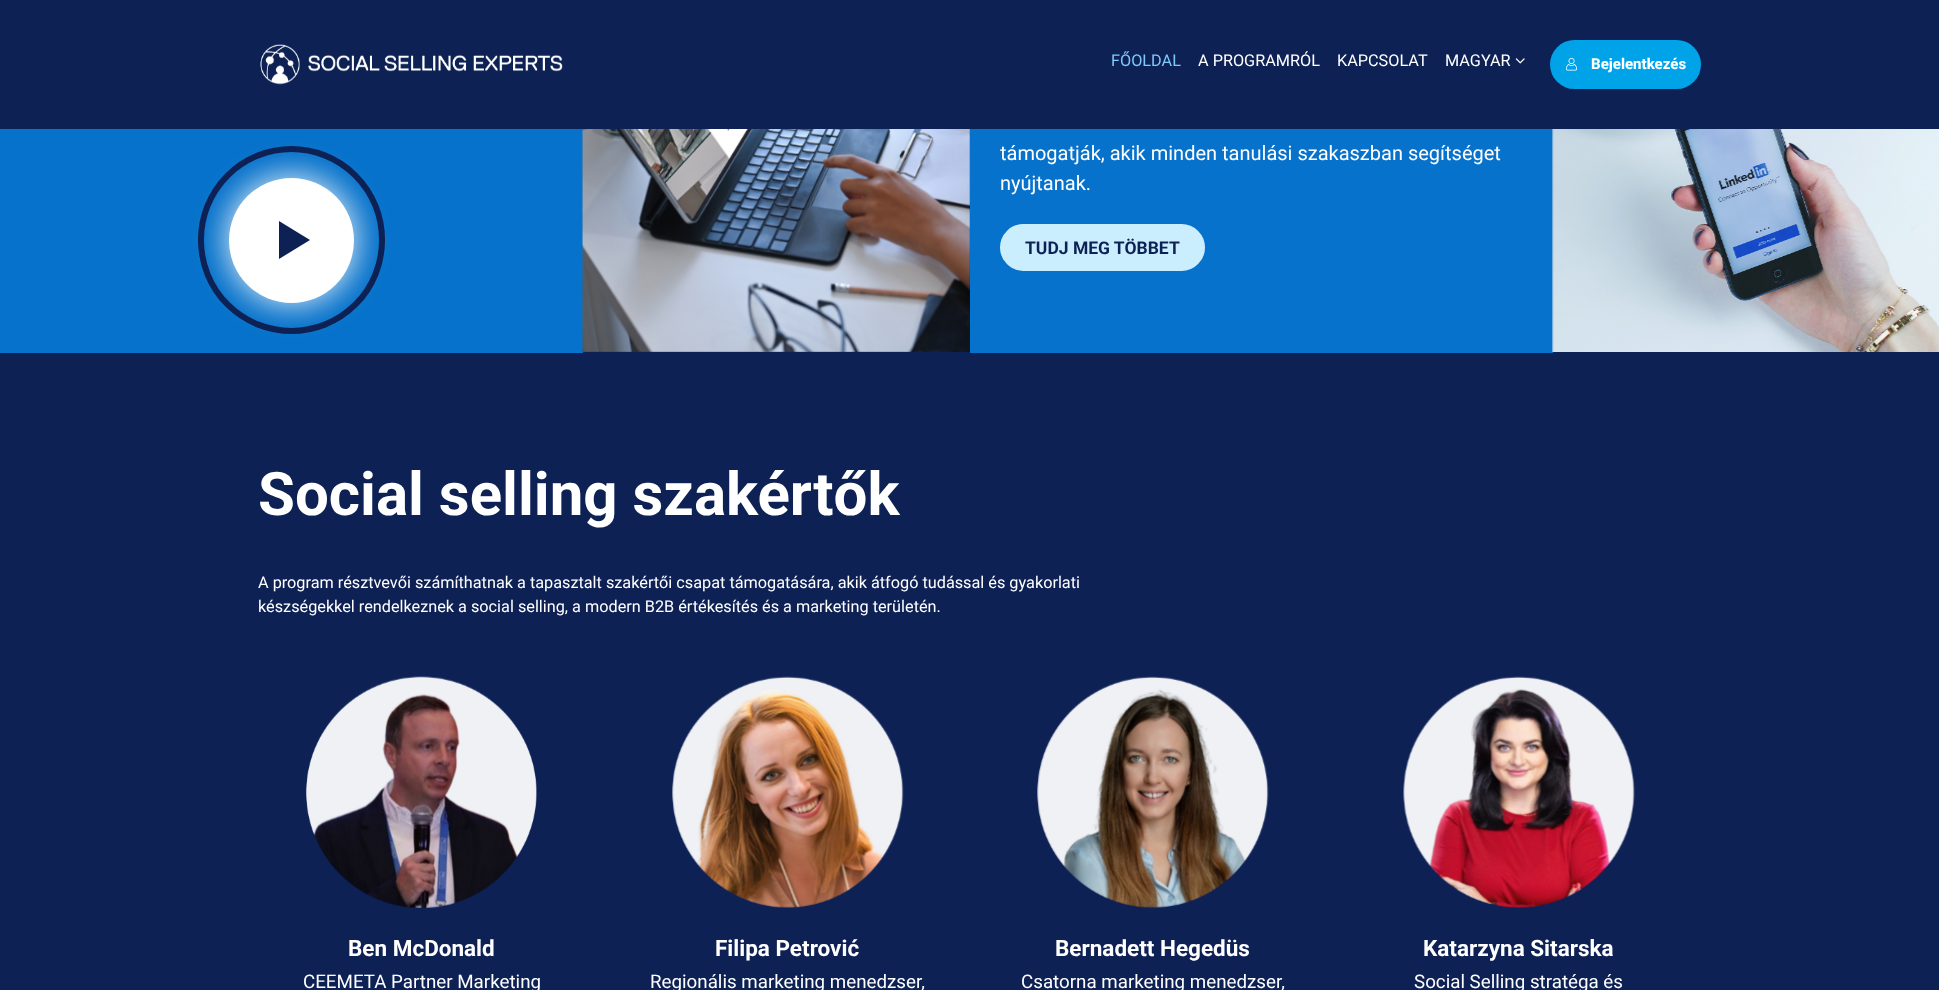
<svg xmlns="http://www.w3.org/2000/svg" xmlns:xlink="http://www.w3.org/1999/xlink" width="1939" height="990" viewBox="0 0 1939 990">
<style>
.cls-1{font:16.25px Roboto;fill:#80c7fb}
.cls-2{font:16.25px Roboto;fill:#ffffff}
.cls-3{font:800 15px Roboto;fill:#ffffff}
.cls-4{font:20px Roboto;fill:#ffffff}
.cls-5{font:bold 17.5px Roboto;fill:#0d2155}
.cls-6{font:bold 60px Roboto;fill:#ffffff}
.cls-7{font:bold 22.5px Roboto;fill:#ffffff}
.cls-8{font:18.75px Roboto;fill:#ffffff}
</style>
<rect width="100%" height="100%" fill="#0d2155"/>
<image xlink:href="image0.png" x="260" y="44" width="303" height="41"/>
<image xlink:href="image1.png" x="1515" y="58" width="10" height="6"/>
<rect fill="#00a2e8" x="1550" y="40" width="151" height="49" rx="24.5"/>
<image xlink:href="image2.png" x="1566" y="58" width="12" height="13"/>
<rect fill="#0672cb" x="0" y="129" width="583" height="224"/>
<rect fill="#ffffff" fill-opacity="0.8" filter="blur(15.5px)" x="225" y="174" width="133" height="132" rx="66"/>
<circle fill="#ffffff" cx="291.5" cy="240.5" r="62.5"/>
<rect fill="none" stroke="#0d2155" stroke-width="6" x="201" y="149" width="181" height="182" rx="90.5"/>
<path fill="#0d2155" d="M279 259V221L310 240Z"/>
<image xlink:href="image3.png" x="582" y="129" width="388" height="223"/>
<rect fill="#0672cb" x="970" y="129" width="583" height="224"/>
<rect fill="#cbeeff" stroke="#cbeeff" stroke-width="3" x="1001.5" y="225.5" width="202" height="44" rx="22"/>
<image xlink:href="image4.png" x="1552" y="129" width="387" height="223"/>
<image xlink:href="image5.png" x="306" y="676" width="231" height="232"/>
<image xlink:href="image6.png" x="672" y="676" width="232" height="232"/>
<image xlink:href="image7.png" x="1037" y="676" width="232" height="232"/>
<image xlink:href="image8.png" x="1403" y="676" width="232" height="232"/>
<text class="cls-1" x="1111" y="66">FŐOLDAL</text>
<text class="cls-2" x="1198" y="66">A PROGRAMRÓL</text>
<text class="cls-2" x="1337" y="66">KAPCSOLAT</text>
<text class="cls-2" x="1445" y="66">MAGYAR</text>
<text class="cls-3" x="1591" y="69">Bejelentkezés</text>
<text class="cls-4"><tspan x="1000" y="160">támogatják, akik minden tanulási szakaszban segítséget</tspan><tspan x="1000" y="190">nyújtanak.</tspan></text>
<text class="cls-5" x="1025" y="254">TUDJ MEG TÖBBET</text>
<text class="cls-6" x="258" y="515">Social selling szakértők</text>
<text class="cls-2"><tspan x="258" y="588">A program résztvevői számíthatnak a tapasztalt szakértői csapat támogatására, akik átfogó tudással és gyakorlati</tspan><tspan x="258" y="612">készségekkel rendelkeznek a social selling, a modern B2B értékesítés és a marketing területén.</tspan></text>
<text class="cls-7" x="348" y="956">Ben McDonald</text>
<text class="cls-8" x="303" y="988">CEEMETA Partner Marketing</text>
<text class="cls-7" x="715" y="956">Filipa Petrović</text>
<text class="cls-8" x="650" y="988">Regionális marketing menedzser,</text>
<text class="cls-7" x="1055" y="956">Bernadett Hegedüs</text>
<text class="cls-8" x="1021" y="988">Csatorna marketing menedzser,</text>
<text class="cls-7" x="1423" y="956">Katarzyna Sitarska</text>
<text class="cls-8" x="1414" y="988">Social Selling stratéga és</text>
</svg>
